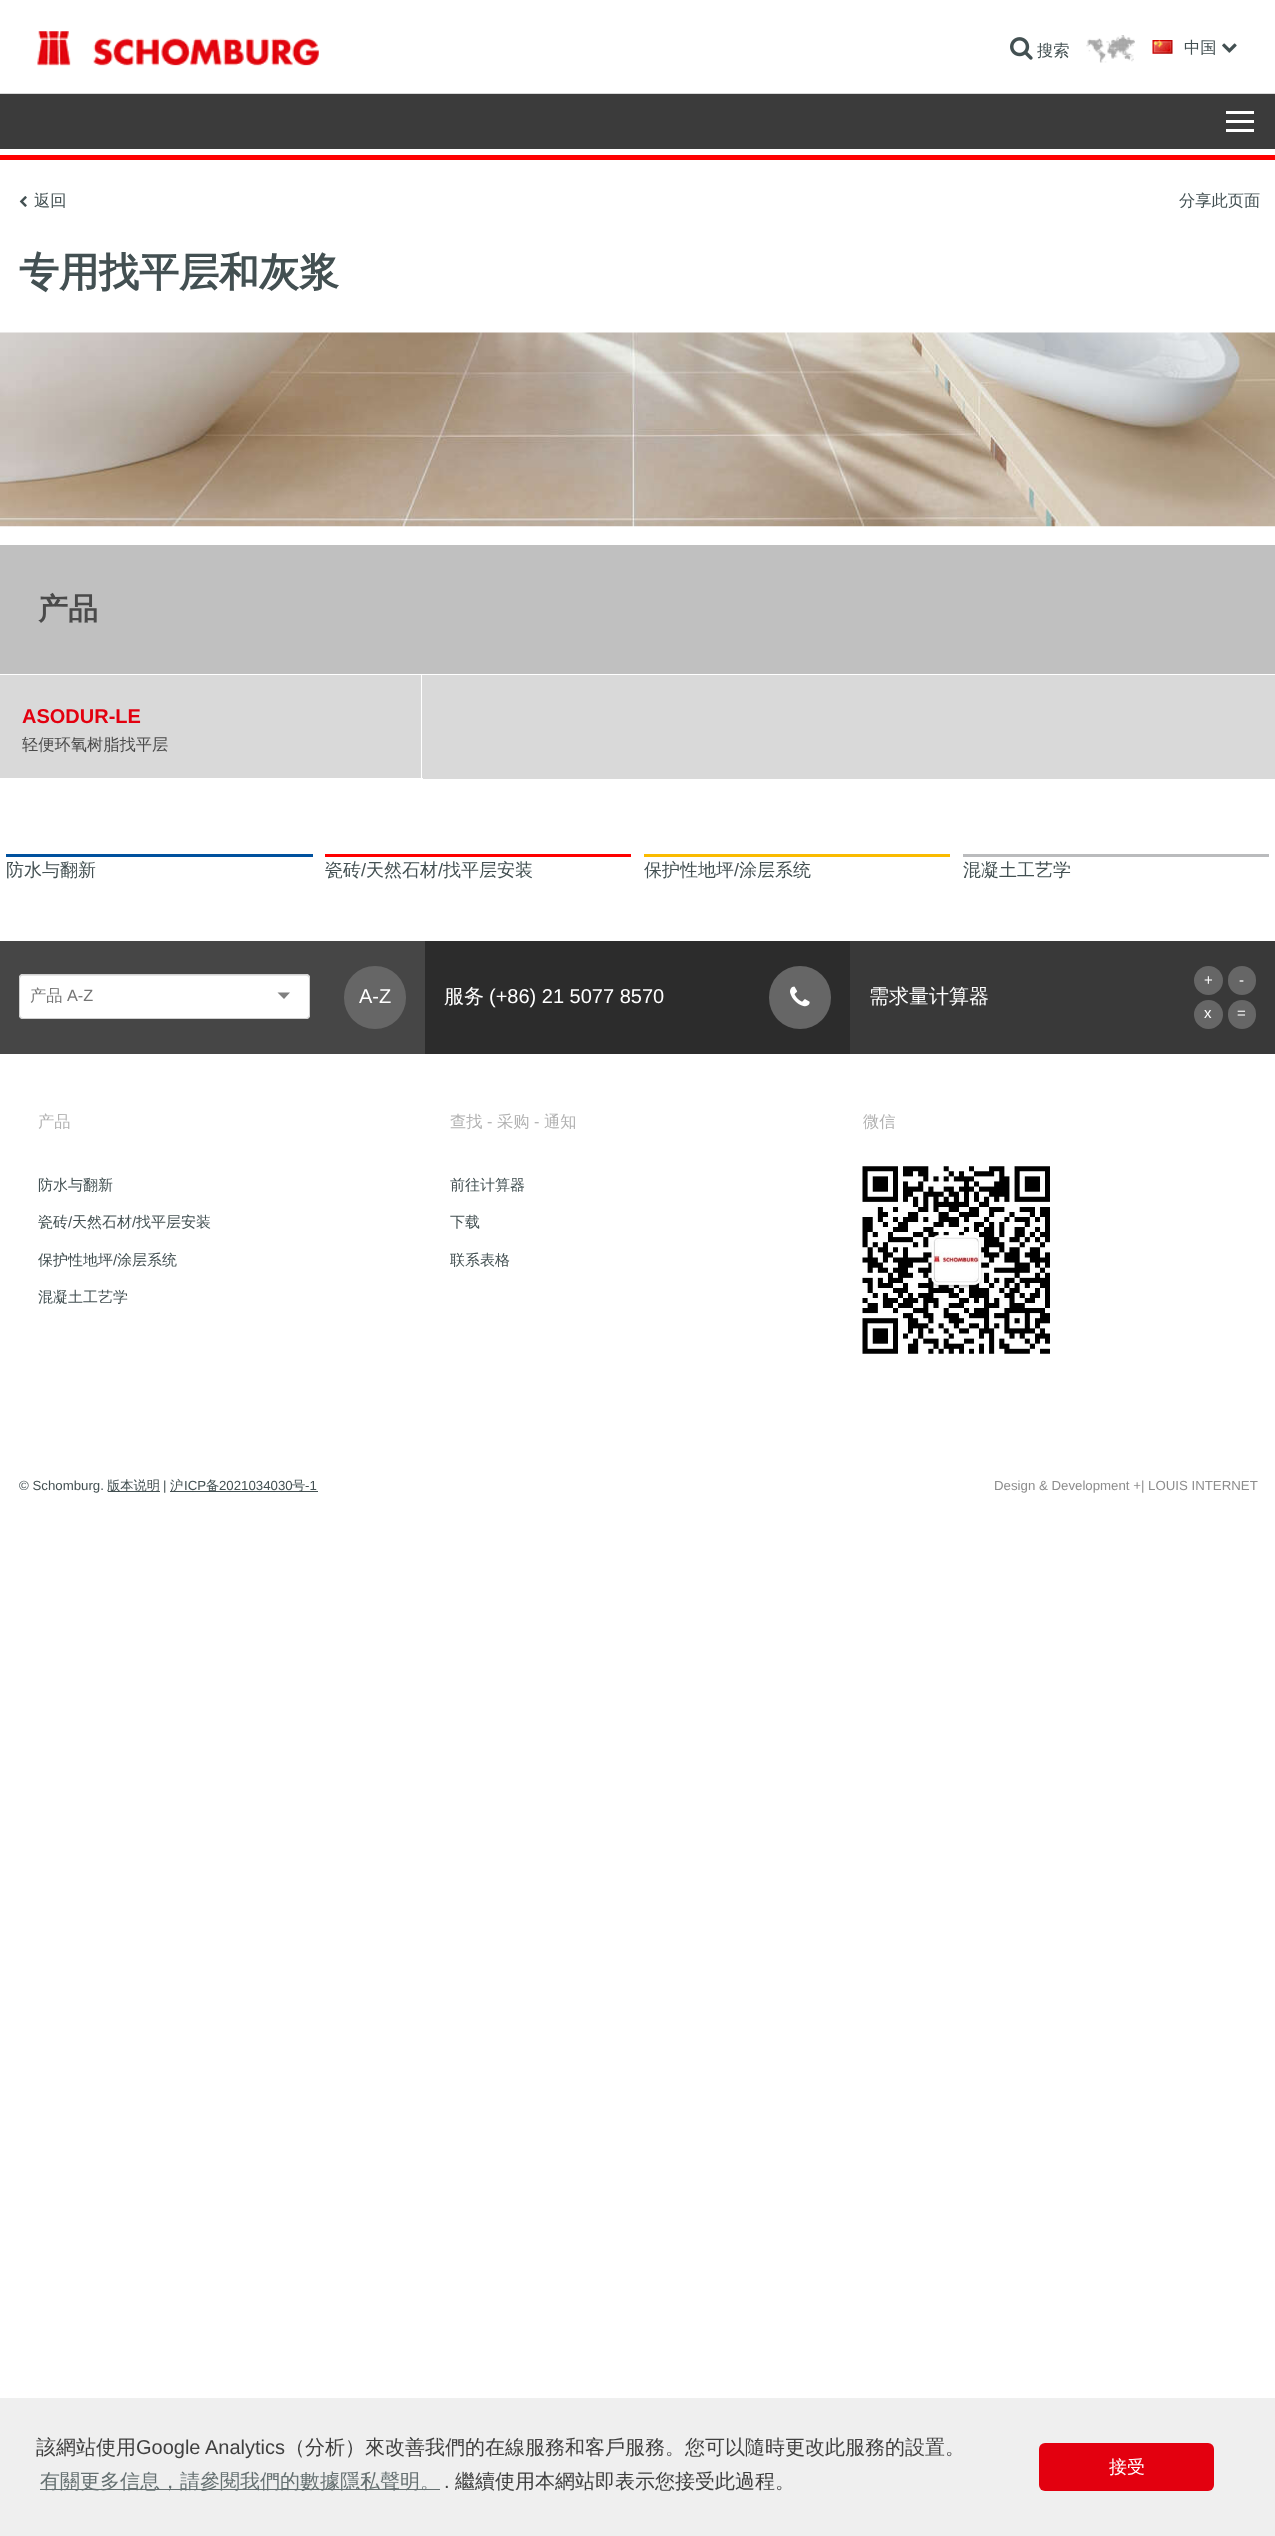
<svg xmlns="http://www.w3.org/2000/svg" xmlns:xlink="http://www.w3.org/1999/xlink" width="1275" height="2536" viewBox="0 0 1275 2536">
<style>
.cls-1{font:500 16.25px WenQuanYi Zen Hei;fill:#435052}
.cls-2{font:bold 40px WenQuanYi Zen Hei;fill:#435052}
.cls-3{font:bold 30px WenQuanYi Zen Hei;fill:#4a4a4a}
.cls-4{font:bold 20px Liberation Sans;fill:#e3000f}
.cls-5{font:500 16.25px WenQuanYi Zen Hei;fill:#4a4a4a}
.cls-6{font:500 18px WenQuanYi Zen Hei;fill:#435052}
.cls-7{font:18px Liberation Sans;fill:#435052}
.cls-8{font:500 16.25px WenQuanYi Zen Hei;fill:#757575}
.cls-9{font:16.25px Liberation Sans;fill:#757575}
.cls-10{font:20px Liberation Sans;fill:#ffffff}
.cls-11{font:500 20px WenQuanYi Zen Hei;fill:#ffffff}
.cls-12{font:15px Liberation Sans;fill:#ffffff}
.cls-13{font:500 16.25px WenQuanYi Zen Hei;fill:#b2b2b2}
.cls-14{font:500 15px WenQuanYi Zen Hei;fill:#435052}
.cls-15{font:15px Liberation Sans;fill:#435052}
.cls-16{font:16.25px Liberation Sans;fill:#b2b2b2}
.cls-17{font:13.25px Liberation Sans;fill:#435052}
.cls-18{font:500 13.25px WenQuanYi Zen Hei;fill:#435052}
.cls-19{font:13.25px Liberation Sans;fill:#8d8d8d}
.cls-20{font:500 20px WenQuanYi Zen Hei;fill:#404040}
.cls-21{font:20px Liberation Sans;fill:#404040}
.cls-22{font:500 20px WenQuanYi Zen Hei;fill:#657071}
.cls-23{font:500 18px WenQuanYi Zen Hei;fill:#ffffff}
</style>
<rect width="100%" height="100%" fill="#ffffff"/>
<rect fill="#d9d9d9" x="0" y="93" width="1275" height="1"/>
<image xlink:href="image0.png" x="37" y="31" width="282" height="35"/>
<image xlink:href="image1.png" x="1010" y="37" width="23" height="23"/>
<image xlink:href="image2.png" x="1086" y="35" width="49" height="28"/>
<image xlink:href="image3.png" x="1152" y="40" width="21" height="14"/>
<image xlink:href="image4.png" x="1222" y="43" width="15" height="10"/>
<rect fill="#3b3b3b" x="0" y="94" width="1275" height="55"/>
<rect fill="#ffffff" x="1226" y="111" width="28" height="3"/>
<rect fill="#ffffff" x="1226" y="120" width="28" height="3"/>
<rect fill="#ffffff" x="1226" y="129" width="28" height="3"/>
<rect fill="#ff0000" x="0" y="155" width="1275" height="5"/>
<image xlink:href="image5.png" x="19" y="196" width="8" height="11"/>
<image xlink:href="image6.png" x="0" y="332" width="1275" height="195"/>
<rect fill="#c0c0c0" x="0" y="545" width="1275" height="129"/>
<rect fill="#d9d9d9" x="0" y="675" width="1275" height="104"/>
<rect fill="#ffffff" x="421" y="675" width="1" height="104"/>
<rect fill="#ffffff" x="0" y="778" width="423" height="1"/>
<rect fill="#00519e" x="6" y="854" width="307" height="3"/>
<rect fill="#ff0000" x="325" y="854" width="306" height="3"/>
<rect fill="#fabb00" x="644" y="854" width="306" height="3"/>
<rect fill="#babbbd" x="963" y="854" width="306" height="3"/>
<rect fill="#464646" x="0" y="941" width="425" height="113"/>
<rect fill="#ffffff" x="19" y="974" width="291" height="45" rx="4"/>
<path fill="#e6e6e6" d="M22 976H306C308 976 309 977 309 979C309 977 309 975 306 975H22C20 975 20 977 20 979C20 977 21 976 22 976Z"/>
<rect fill="none" stroke="#d0d0d0" x="19.5" y="974.5" width="290" height="44" rx="3.5"/>
<path fill="#808080" d="M277.5 992.5H290L284 999Z"/>
<rect fill="#666666" x="344" y="966" width="62" height="63" rx="31"/>
<rect fill="#2c2c2c" x="425" y="941" width="425" height="113"/>
<rect fill="#666666" x="769" y="966" width="62" height="63" rx="31"/>
<image xlink:href="image7.png" x="790" y="986" width="20" height="21"/>
<rect fill="#393939" x="850" y="941" width="425" height="113"/>
<circle fill="#666666" cx="1208.5" cy="980.5" r="14.5"/>
<rect fill="#666666" x="1228" y="966" width="28" height="29" rx="14"/>
<circle fill="#666666" cx="1208.5" cy="1014.5" r="14.5"/>
<rect fill="#666666" x="1228" y="1000" width="28" height="29" rx="14"/>
<image xlink:href="image8.png" x="862" y="1166" width="188" height="188"/>
<rect fill="#435052" x="108" y="1491" width="52" height="1"/>
<rect fill="#435052" x="170" y="1491" width="148" height="1"/>
<rect fill="#efefef" x="0" y="2398" width="1275" height="138"/>
<rect fill="#657071" x="40" y="2489" width="400" height="1"/>
<rect fill="#e3000f" x="1039" y="2443" width="175" height="48" rx="6"/>
<text class="cls-1" x="1037" y="56">搜索</text>
<text class="cls-1" x="1184" y="53">中国</text>
<text class="cls-1" x="34" y="206">返回</text>
<text class="cls-1" x="1179" y="206">分享此页面</text>
<text class="cls-2" x="19" y="286">专用找平层和灰浆</text>
<text class="cls-3" x="38" y="619">产品</text>
<text class="cls-4" x="22" y="723">ASODUR-LE</text>
<text class="cls-5" x="22" y="750">轻便环氧树脂找平层</text>
<text class="cls-6" x="6" y="876">防水与翻新</text>
<text class="cls-6" x="325" y="876">瓷砖</text>
<text class="cls-7" x="361" y="876">/</text>
<text class="cls-6" x="366" y="876">天然石材</text>
<text class="cls-7" x="438" y="876">/</text>
<text class="cls-6" x="443" y="876">找平层安装</text>
<text class="cls-6" x="644" y="876">保护性地坪</text>
<text class="cls-7" x="734" y="876">/</text>
<text class="cls-6" x="739" y="876">涂层系统</text>
<text class="cls-6" x="963" y="876">混凝土工艺学</text>
<text class="cls-8" x="30" y="1001">产品</text>
<text class="cls-9" x="67" y="1001">A-Z</text>
<text class="cls-10" x="359" y="1003">A-Z</text>
<text class="cls-11" x="444" y="1003">服务</text>
<text class="cls-10" x="489" y="1003">(+86) 21 5077 8570</text>
<text class="cls-11" x="869" y="1003">需求量计算器</text>
<text class="cls-12" x="1204" y="985">+</text>
<text class="cls-12" x="1239" y="985">-</text>
<text class="cls-12" x="1204" y="1018">x</text>
<text class="cls-12" x="1237" y="1018">=</text>
<text class="cls-13" x="38" y="1127">产品</text>
<text class="cls-14" x="38" y="1190">防水与翻新</text>
<text class="cls-14" x="38" y="1227">瓷砖</text>
<text class="cls-15" x="68" y="1227">/</text>
<text class="cls-14" x="72" y="1227">天然石材</text>
<text class="cls-15" x="132" y="1227">/</text>
<text class="cls-14" x="136" y="1227">找平层安装</text>
<text class="cls-14" x="38" y="1265">保护性地坪</text>
<text class="cls-15" x="113" y="1265">/</text>
<text class="cls-14" x="117" y="1265">涂层系统</text>
<text class="cls-14" x="38" y="1302">混凝土工艺学</text>
<text class="cls-13" x="450" y="1127">查找</text>
<text class="cls-16" x="487" y="1127">-</text>
<text class="cls-13" x="497" y="1127">采购</text>
<text class="cls-16" x="534" y="1127">-</text>
<text class="cls-13" x="544" y="1127">通知</text>
<text class="cls-14" x="450" y="1190">前往计算器</text>
<text class="cls-14" x="450" y="1227">下载</text>
<text class="cls-14" x="450" y="1265">联系表格</text>
<text class="cls-13" x="863" y="1127">微信</text>
<text class="cls-17" x="19" y="1490">© Schomburg.</text>
<text class="cls-18" x="107" y="1490">版本说明</text>
<text class="cls-17" x="163" y="1490">|</text>
<text class="cls-18" x="170" y="1490">沪</text>
<text class="cls-17" x="184" y="1490">ICP</text>
<text class="cls-18" x="206" y="1490">备</text>
<text class="cls-17" x="219" y="1490">2021034030</text>
<text class="cls-18" x="292" y="1490">号</text>
<text class="cls-17" x="305" y="1490">-1</text>
<text class="cls-19" x="994" y="1490">Design &amp; Development +| LOUIS INTERNET</text>
<text class="cls-20" x="36" y="2454">該網站使用</text>
<text class="cls-21" x="136" y="2454">Google Analytics</text>
<text class="cls-20" x="285" y="2454">（分析）來改善我們的在線服務和客戶服務。您可以隨時更改此服務的設置。</text>
<text class="cls-22" x="40" y="2488">有關更多信息，請參閱我們的數據隱私聲明。</text>
<text class="cls-21" x="444" y="2488">.</text>
<text class="cls-20" x="455" y="2488">繼續使用本網站即表示您接受此過程。</text>
<text class="cls-23" x="1109" y="2473">接受</text>
</svg>
